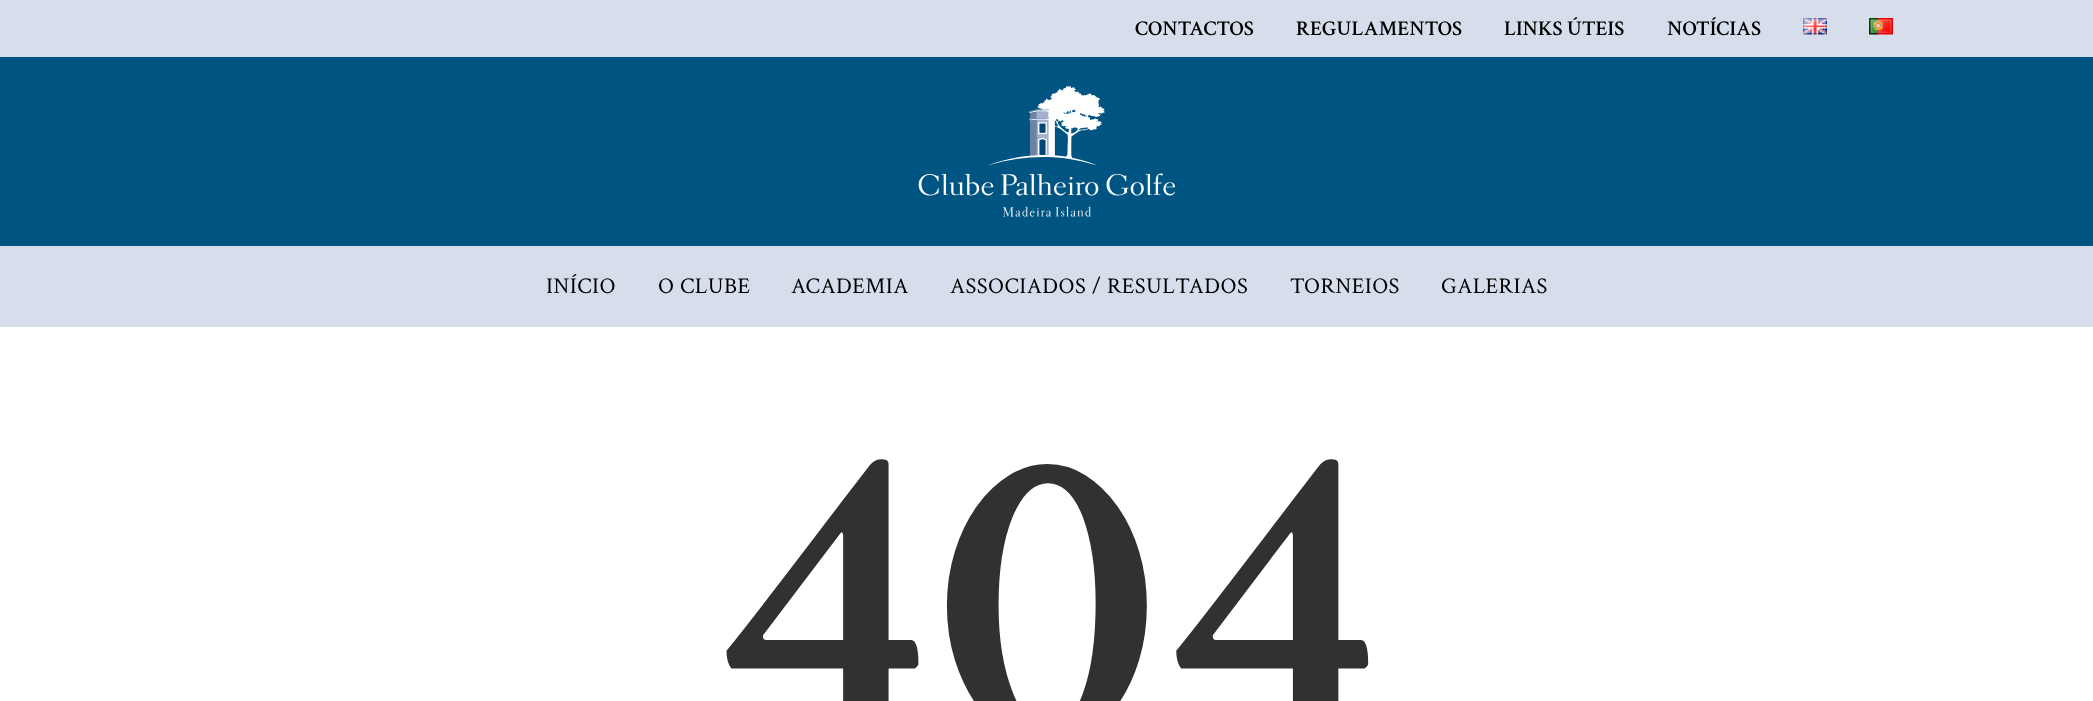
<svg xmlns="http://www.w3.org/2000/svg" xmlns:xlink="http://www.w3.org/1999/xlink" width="2093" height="701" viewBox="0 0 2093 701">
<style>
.cls-1{font:600 21px Crimson Text;fill:#000000}
.cls-2{font:22.5px Crimson Text;letter-spacing:0.45px;fill:#000000}
.cls-3{font:600 456px Crimson Text;fill:#303133}
</style>
<rect width="100%" height="100%" fill="#ffffff"/>
<rect fill="#d6deeb" x="0" y="0" width="2093" height="57"/>
<image xlink:href="image0.png" x="1803" y="18" width="24" height="17"/>
<image xlink:href="image1.png" x="1869" y="18" width="24" height="17"/>
<rect fill="#005482" x="0" y="57" width="2093" height="189"/>
<image xlink:href="image2.png" x="918" y="86" width="258" height="131"/>
<rect fill="#d6deeb" x="0" y="246" width="2093" height="81"/>
<text class="cls-1" x="1135" y="35">CONTACTOS</text>
<text class="cls-1" x="1296" y="35">REGULAMENTOS</text>
<text class="cls-1" x="1504" y="35">LINKS ÚTEIS</text>
<text class="cls-1" x="1667" y="35">NOTÍCIAS</text>
<text class="cls-2" x="546" y="293">INÍCIO</text>
<text class="cls-2" x="658" y="293">O CLUBE</text>
<text class="cls-2" x="791" y="293">ACADEMIA</text>
<text class="cls-2" x="950" y="293">ASSOCIADOS / RESULTADOS</text>
<text class="cls-2" x="1290" y="293">TORNEIOS</text>
<text class="cls-2" x="1441" y="293">GALERIAS</text>
<text class="cls-3" x="710" y="746">404</text>
</svg>
